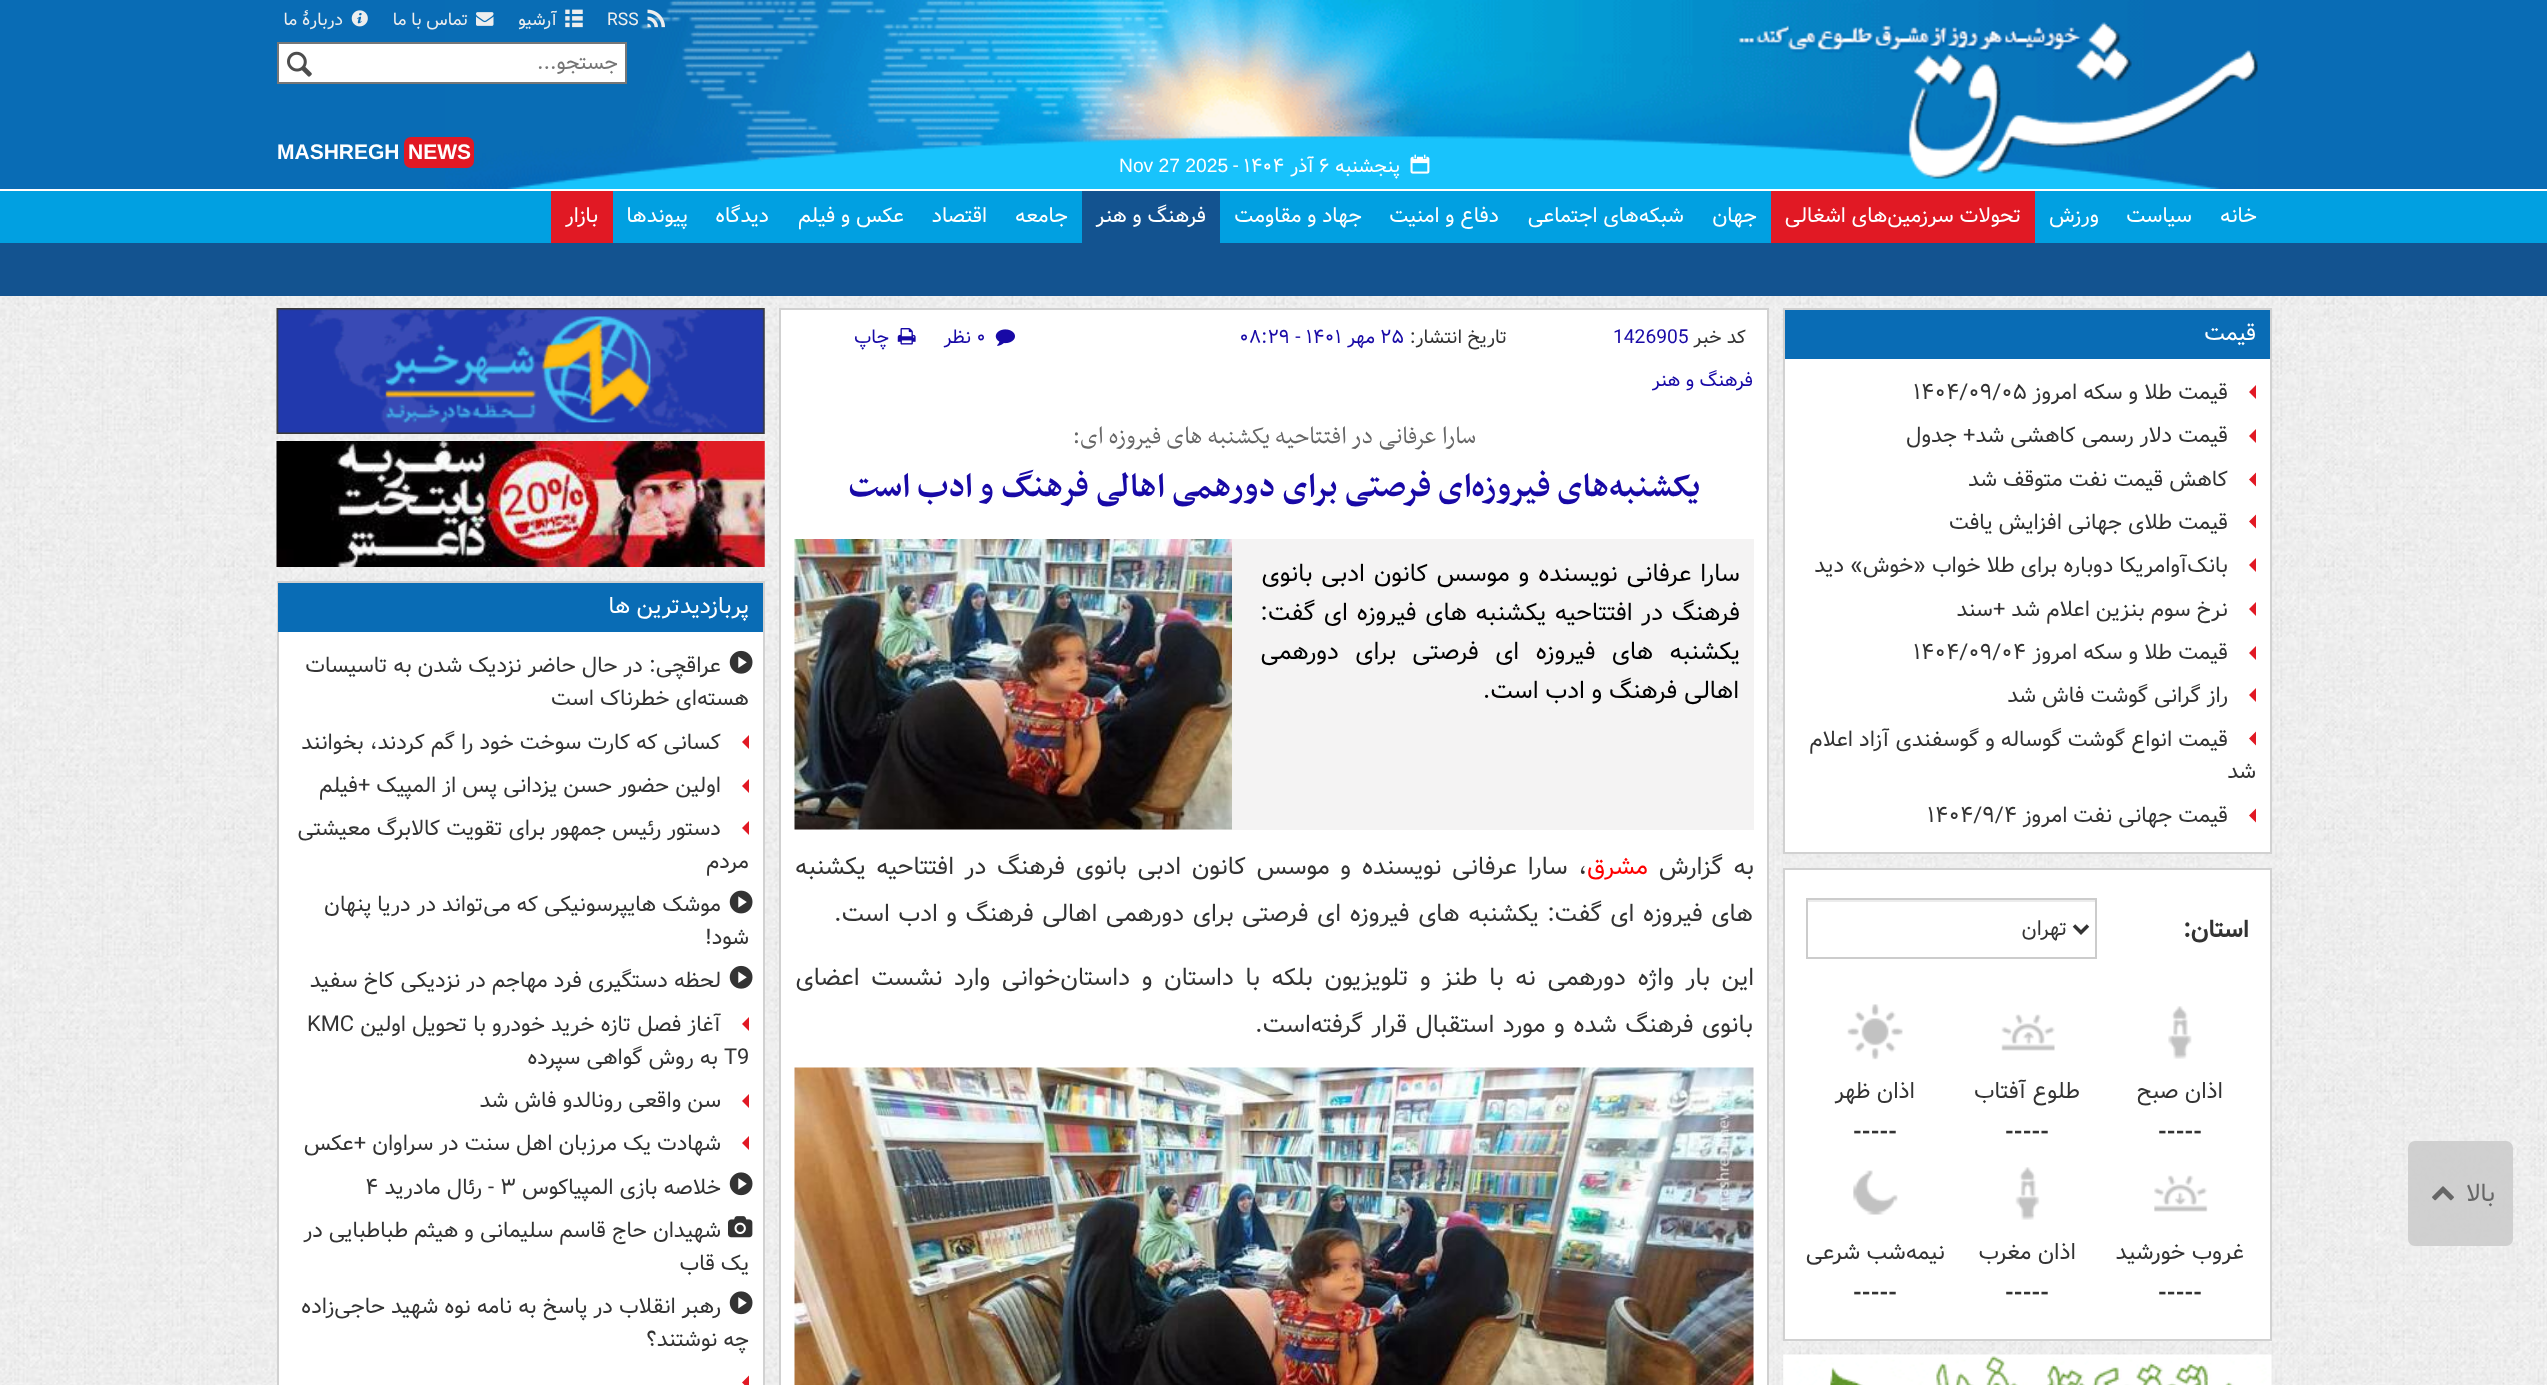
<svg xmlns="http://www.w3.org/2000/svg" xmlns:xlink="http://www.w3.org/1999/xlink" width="2547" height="1385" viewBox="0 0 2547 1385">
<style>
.cls-1{font:17.5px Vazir;fill:#eeeeee}
.cls-2{font:17.5px Vazir;direction:rtl;fill:#eeeeee}
.cls-3{font:21px Vazir;direction:rtl;fill:#757575}
.cls-4{font:bold 21px Liberation Sans;fill:#ffffff}
.cls-5{font:19.25px Vazir;direction:rtl;fill:#ffffff}
.cls-6{font:19.25px Vazir;fill:#ffffff}
.cls-7{font:19.25px Liberation Sans;fill:#ffffff}
.cls-8{font:21px Vazir;direction:rtl;fill:#ffffff}
.cls-9{font:24.5px Vazir;direction:rtl;fill:#666666}
.cls-10{font:22.75px Vazir;direction:rtl;fill:#ffffff}
.cls-11{font:21.9px Vazir;direction:rtl;fill:#333333}
.cls-12{font:21.9px Vazir;fill:#333333}
.cls-13{font:bold 24.5px Vazir;direction:rtl;fill:#333333}
.cls-14{font:21px Vazir;direction:rtl;fill:#333333}
.cls-15{font:22.75px Vazir;direction:rtl;fill:#333333}
.cls-16{font:bold 22.75px Vazir;fill:#333333}
.cls-17{font:19.25px Vazir;direction:rtl;fill:#333333}
.cls-18{font:19.25px Vazir;fill:#1809a6}
.cls-19{font:19.25px Vazir;direction:rtl;fill:#1809a6}
.cls-20{font:28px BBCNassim;direction:rtl;fill:#666666}
.cls-21{font:bold 38.5px BBCNassim;direction:rtl;fill:#1809a6}
.cls-22{font:24.5px Vazir;direction:rtl;fill:#000000}
.cls-23{font:24.5px Vazir;direction:rtl;fill:#333333}
.cls-24{font:24.5px Vazir;direction:rtl;fill:#ff0000}
</style>
<rect width="100%" height="100%" fill="#ffffff"/>
<image xlink:href="image0.png" x="0" y="296" width="2547" height="1089"/>
<rect fill="#096cb5" x="0" y="0" width="2547" height="189"/>
<image xlink:href="image5.png" x="445" y="0" width="1813" height="189"/>
<image xlink:href="image1.png" x="647" y="9" width="18" height="19"/>
<image xlink:href="image2.png" x="565" y="9" width="18" height="19"/>
<image xlink:href="image3.png" x="476" y="12" width="18" height="14"/>
<image xlink:href="image4.png" x="351" y="10" width="17" height="17"/>
<rect fill="#ffffff" stroke="#777777" stroke-width="2" x="278" y="43" width="348" height="40"/>
<image xlink:href="image6.png" x="287" y="51" width="25" height="26"/>
<rect fill="#e11924" x="404" y="137" width="70" height="31" rx="7"/>
<image xlink:href="image7.png" x="1410" y="154" width="20" height="20"/>
<rect fill="#01a0e1" x="0" y="191" width="2547" height="52"/>
<rect fill="#e11924" x="1771" y="191" width="264" height="52"/>
<rect fill="#135390" x="1082" y="191" width="138" height="52"/>
<rect fill="#135390" x="0" y="243" width="2547" height="53"/>
<rect fill="#e11924" x="551" y="191" width="62" height="52"/>
<rect fill="#cccccc" fill-opacity="0.9" x="2408" y="1141" width="105" height="105" rx="7"/>
<image xlink:href="image8.png" x="2432" y="1186" width="22" height="15"/>
<rect fill="#ffffff" x="1785" y="359" width="485" height="493"/>
<rect fill="none" stroke="#d1d1d1" stroke-width="2" x="1784" y="309" width="487" height="544"/>
<rect fill="#096cb5" x="1785" y="310" width="485" height="49"/>
<path fill="#e11924" d="M2256 385V399L2249 392Z"/>
<path fill="#e11924" d="M2256 429V443L2249 436Z"/>
<path fill="#e11924" d="M2256 472.5V486.5L2249 479.5Z"/>
<path fill="#e11924" d="M2256 514.5V528.5L2249 521.5Z"/>
<path fill="#e11924" d="M2256 558V572L2249 565Z"/>
<path fill="#e11924" d="M2256 602V616L2249 609Z"/>
<path fill="#e11924" d="M2256 646V660L2249 653Z"/>
<path fill="#e11924" d="M2256 688V702L2249 695Z"/>
<path fill="#e11924" d="M2256 731.5V745.5L2249 738.5Z"/>
<path fill="#e11924" d="M2256 808.5V822.5L2249 815.5Z"/>
<rect fill="#ffffff" stroke="#d1d1d1" stroke-width="2" x="1784" y="869" width="487" height="471"/>
<rect fill="#ececec" x="1808" y="900" width="287" height="2"/>
<rect fill="none" stroke="#cccccc" stroke-width="2" x="1807" y="899" width="289" height="59"/>
<path fill="none" stroke="#333333" stroke-width="3.5" d="M2074 925.5L2081 932.5L2088 925.5"/>
<image xlink:href="image9.png" x="2168" y="1006" width="24" height="53"/>
<image xlink:href="image10.png" x="2001" y="1014" width="54" height="37"/>
<image xlink:href="image11.png" x="1847" y="1004" width="56" height="56"/>
<image xlink:href="image12.png" x="2154" y="1175" width="54" height="37"/>
<image xlink:href="image13.png" x="2015" y="1167" width="25" height="53"/>
<image xlink:href="image14.png" x="1853" y="1170" width="45" height="45"/>
<image xlink:href="image15.png" x="1783" y="1354" width="489" height="31"/>
<rect fill="#ffffff" stroke="#d1d1d1" stroke-width="2" x="780" y="309" width="988" height="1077"/>
<image xlink:href="image16.png" x="995" y="329" width="20" height="17"/>
<image xlink:href="image17.png" x="897" y="328" width="19" height="17"/>
<rect fill="#f4f3f3" x="795" y="539" width="959" height="291"/>
<image xlink:href="image18.png" x="794" y="539" width="438" height="291"/>
<image xlink:href="image19.png" x="794" y="1067" width="960" height="318"/>
<image xlink:href="image20.png" x="276" y="308" width="489" height="126"/>
<image xlink:href="image21.png" x="276" y="441" width="489" height="126"/>
<rect fill="#ffffff" x="279" y="632" width="484" height="753"/>
<rect fill="none" stroke="#d1d1d1" stroke-width="2" x="278" y="582" width="486" height="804"/>
<rect fill="#096cb5" x="278" y="583" width="485" height="49"/>
<image xlink:href="image22.png" x="729" y="650" width="24" height="24"/>
<path fill="#e11924" d="M749 735V749L742 742Z"/>
<path fill="#e11924" d="M749 779V793L742 786Z"/>
<path fill="#e11924" d="M749 821V835L742 828Z"/>
<image xlink:href="image23.png" x="729" y="890" width="24" height="24"/>
<image xlink:href="image22.png" x="729" y="965" width="24" height="24"/>
<path fill="#e11924" d="M749 1017V1031L742 1024Z"/>
<path fill="#e11924" d="M749 1094V1108L742 1101Z"/>
<path fill="#e11924" d="M749 1136V1150L742 1143Z"/>
<image xlink:href="image24.png" x="729" y="1172" width="24" height="24"/>
<image xlink:href="image25.png" x="728" y="1216" width="25" height="22"/>
<image xlink:href="image24.png" x="729" y="1291" width="24" height="24"/>
<path fill="#e11924" d="M749 1375.5V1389.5L742 1382.5Z"/>
<text class="cls-1" x="607" y="25">RSS</text>
<text class="cls-2" x="557" y="25">آرشیو</text>
<text class="cls-2" x="468" y="25">تماس با ما</text>
<text class="cls-2" x="343" y="25">دربارهٔ ما</text>
<text class="cls-3" x="618" y="69">جستجو...</text>
<text class="cls-4" x="408" y="159">NEWS</text>
<text class="cls-4" x="277" y="159">MASHREGH</text>
<text class="cls-5" x="1400" y="172">پنجشنبه</text>
<text class="cls-6" x="1319" y="172">۶</text>
<text class="cls-5" x="1314" y="172">آذر</text>
<text class="cls-6" x="1233" y="172">- ۱۴۰۴</text>
<text class="cls-7" x="1119" y="172">Nov 27 2025</text>
<text class="cls-8" x="2257" y="222">خانه</text>
<text class="cls-8" x="2192" y="222">سیاست</text>
<text class="cls-8" x="2099" y="222">ورزش</text>
<text class="cls-8" x="2021" y="222">تحولات سرزمین‌های اشغالی</text>
<text class="cls-8" x="1757" y="222">جهان</text>
<text class="cls-8" x="1684" y="222">شبکه‌های اجتماعی</text>
<text class="cls-8" x="1499" y="222">دفاع و امنیت</text>
<text class="cls-8" x="1362" y="222">جهاد و مقاومت</text>
<text class="cls-8" x="1206" y="222">فرهنگ و هنر</text>
<text class="cls-8" x="1068" y="222">جامعه</text>
<text class="cls-8" x="987" y="222">اقتصاد</text>
<text class="cls-8" x="904" y="222">عکس و فیلم</text>
<text class="cls-8" x="769" y="222">دیدگاه</text>
<text class="cls-8" x="688" y="222">پیوندها</text>
<text class="cls-8" x="598" y="222">بازار</text>
<text class="cls-9" x="2495" y="1201">بالا</text>
<text class="cls-10" x="2256" y="340">قیمت</text>
<text class="cls-11" x="2228" y="399">قیمت طلا و سکه امروز</text>
<text class="cls-12" x="1913" y="399">۱۴۰۴/۰۹/۰۵</text>
<text class="cls-11" x="2228" y="442">قیمت دلار رسمی کاهشی شد+ جدول</text>
<text class="cls-11"><tspan x="2228" y="486">کاهش قیمت نفت متوقف شد</tspan><tspan x="2228" y="529">قیمت طلای جهانی افزایش یافت</tspan><tspan x="2228" y="572">بانک‌آوامریکا دوباره برای طلا خواب «خوش» دید</tspan></text>
<text class="cls-11"><tspan x="2228" y="616">نرخ سوم بنزین اعلام شد +سند</tspan><tspan x="2228" y="659">قیمت طلا و سکه امروز</tspan></text>
<text class="cls-12" x="1913" y="659">۱۴۰۴/۰۹/۰۴</text>
<text class="cls-11" x="2228" y="702">راز گرانی گوشت فاش شد</text>
<text class="cls-11" x="2228" y="746">قیمت انواع گوشت گوساله و گوسفندی آزاد اعلام</text>
<text class="cls-11" x="2256" y="778">شد</text>
<text class="cls-11" x="2228" y="822">قیمت جهانی نفت امروز</text>
<text class="cls-12" x="1927" y="822">۱۴۰۴/۹/۴</text>
<text class="cls-13" x="2249" y="937">استان:</text>
<text class="cls-14" x="2067" y="935">تهران</text>
<text class="cls-15" x="2223" y="1098">اذان صبح</text>
<text class="cls-16" x="2158" y="1139">-----</text>
<text class="cls-15" x="2080" y="1098">طلوع آفتاب</text>
<text class="cls-16" x="2005" y="1139">-----</text>
<text class="cls-15" x="1915" y="1098">اذان ظهر</text>
<text class="cls-16" x="1853" y="1139">-----</text>
<text class="cls-15" x="2244" y="1259">غروب خورشید</text>
<text class="cls-16" x="2158" y="1300">-----</text>
<text class="cls-15" x="2076" y="1259">اذان مغرب</text>
<text class="cls-16" x="2005" y="1300">-----</text>
<text class="cls-15" x="1945" y="1259">نیمه‌شب شرعی</text>
<text class="cls-16" x="1853" y="1300">-----</text>
<text class="cls-17" x="1746" y="343">کد خبر</text>
<text class="cls-18" x="1613" y="343">1426905</text>
<text class="cls-17" x="1507" y="343">تاریخ انتشار:</text>
<text class="cls-18" x="1380" y="343">۲۵</text>
<text class="cls-19" x="1375" y="343">مهر</text>
<text class="cls-18" x="1239" y="343">۰۸:۲۹ - ۱۴۰۱</text>
<text class="cls-18" x="976" y="343">۰</text>
<text class="cls-19" x="971" y="343">نظر</text>
<text class="cls-19" x="889" y="343">چاپ</text>
<text class="cls-19" x="1753" y="386">فرهنگ و هنر</text>
<text class="cls-20" x="1476" y="443">سارا عرفانی در افتتاحیه یکشنبه های فیروزه ای:</text>
<text class="cls-21" x="1700" y="496">یکشنبه‌های فیروزه‌ای فرصتی برای دورهمی اهالی فرهنگ و ادب است</text>
<text class="cls-22"><tspan x="1740" y="581" word-spacing="2">سارا عرفانی نویسنده و موسس کانون ادبی بانوی</tspan><tspan x="1740" y="620" word-spacing="2">فرهنگ در افتتاحیه یکشنبه های فیروزه ای گفت:</tspan><tspan x="1740" y="659" word-spacing="9.5">یکشنبه های فیروزه ای فرصتی برای دورهمی</tspan></text>
<text class="cls-22" x="1739" y="698">اهالی فرهنگ و ادب است.</text>
<text class="cls-23" x="1754" y="874" word-spacing="3.9">به گزارش</text>
<text class="cls-24" x="1648" y="874">مشرق</text>
<text class="cls-23" x="1587" y="874" word-spacing="3.9">، سارا عرفانی نویسنده و موسس کانون ادبی بانوی فرهنگ در افتتاحیه یکشنبه</text>
<text class="cls-23" x="1753" y="921" word-spacing="1.75">های فیروزه ای گفت: یکشنبه های فیروزه ای فرصتی برای دورهمی اهالی فرهنگ و ادب است.</text>
<text class="cls-23" x="1754" y="985" word-spacing="4.9">این بار واژه دورهمی نه با طنز و تلویزیون بلکه با داستان و داستان‌خوانی وارد نشست اعضای</text>
<text class="cls-23" x="1753" y="1032" word-spacing="1.75">بانوی فرهنگ شده و مورد استقبال قرار گرفته‌است.</text>
<text class="cls-10" x="749" y="613">پربازدیدترین ها</text>
<text class="cls-11" x="721" y="672">عراقچی: در حال حاضر نزدیک شدن به تاسیسات</text>
<text class="cls-11" x="749" y="705">هسته‌ای خطرناک است</text>
<text class="cls-11"><tspan x="721" y="749">کسانی که کارت سوخت خود را گم کردند، بخوانند</tspan><tspan x="721" y="792">اولین حضور حسن یزدانی پس از المپیک +فیلم</tspan><tspan x="721" y="835">دستور رئیس جمهور برای تقویت کالابرگ معیشتی</tspan></text>
<text class="cls-11" x="749" y="868">مردم</text>
<text class="cls-11" x="721" y="911">موشک هایپرسونیکی که می‌تواند در دریا پنهان</text>
<text class="cls-11" x="749" y="944">شود!</text>
<text class="cls-11" x="721" y="987">لحظه دستگیری فرد مهاجم در نزدیکی کاخ سفید</text>
<text class="cls-11" x="721" y="1031">آغاز فصل تازه خرید خودرو با تحویل اولین</text>
<text class="cls-12" x="307" y="1031">KMC</text>
<text class="cls-12" x="724" y="1064">T9</text>
<text class="cls-11" x="718" y="1064">به روش گواهی سپرده</text>
<text class="cls-11"><tspan x="721" y="1107">سن واقعی رونالدو فاش شد</tspan><tspan x="721" y="1150">شهادت یک مرزبان اهل سنت در سراوان +عکس</tspan></text>
<text class="cls-11" x="721" y="1194">خلاصه بازی المپیاکوس</text>
<text class="cls-12" x="500" y="1194">۳</text>
<text class="cls-11" x="494" y="1194">- رئال مادرید</text>
<text class="cls-12" x="365" y="1194">۴</text>
<text class="cls-11" x="721" y="1237">شهیدان حاج قاسم سلیمانی و هیثم طباطبایی در</text>
<text class="cls-11" x="749" y="1270">یک قاب</text>
<text class="cls-11" x="721" y="1313">رهبر انقلاب در پاسخ به نامه نوه شهید حاجی‌زاده</text>
<text class="cls-11" x="749" y="1346">چه نوشتند؟</text>
</svg>
